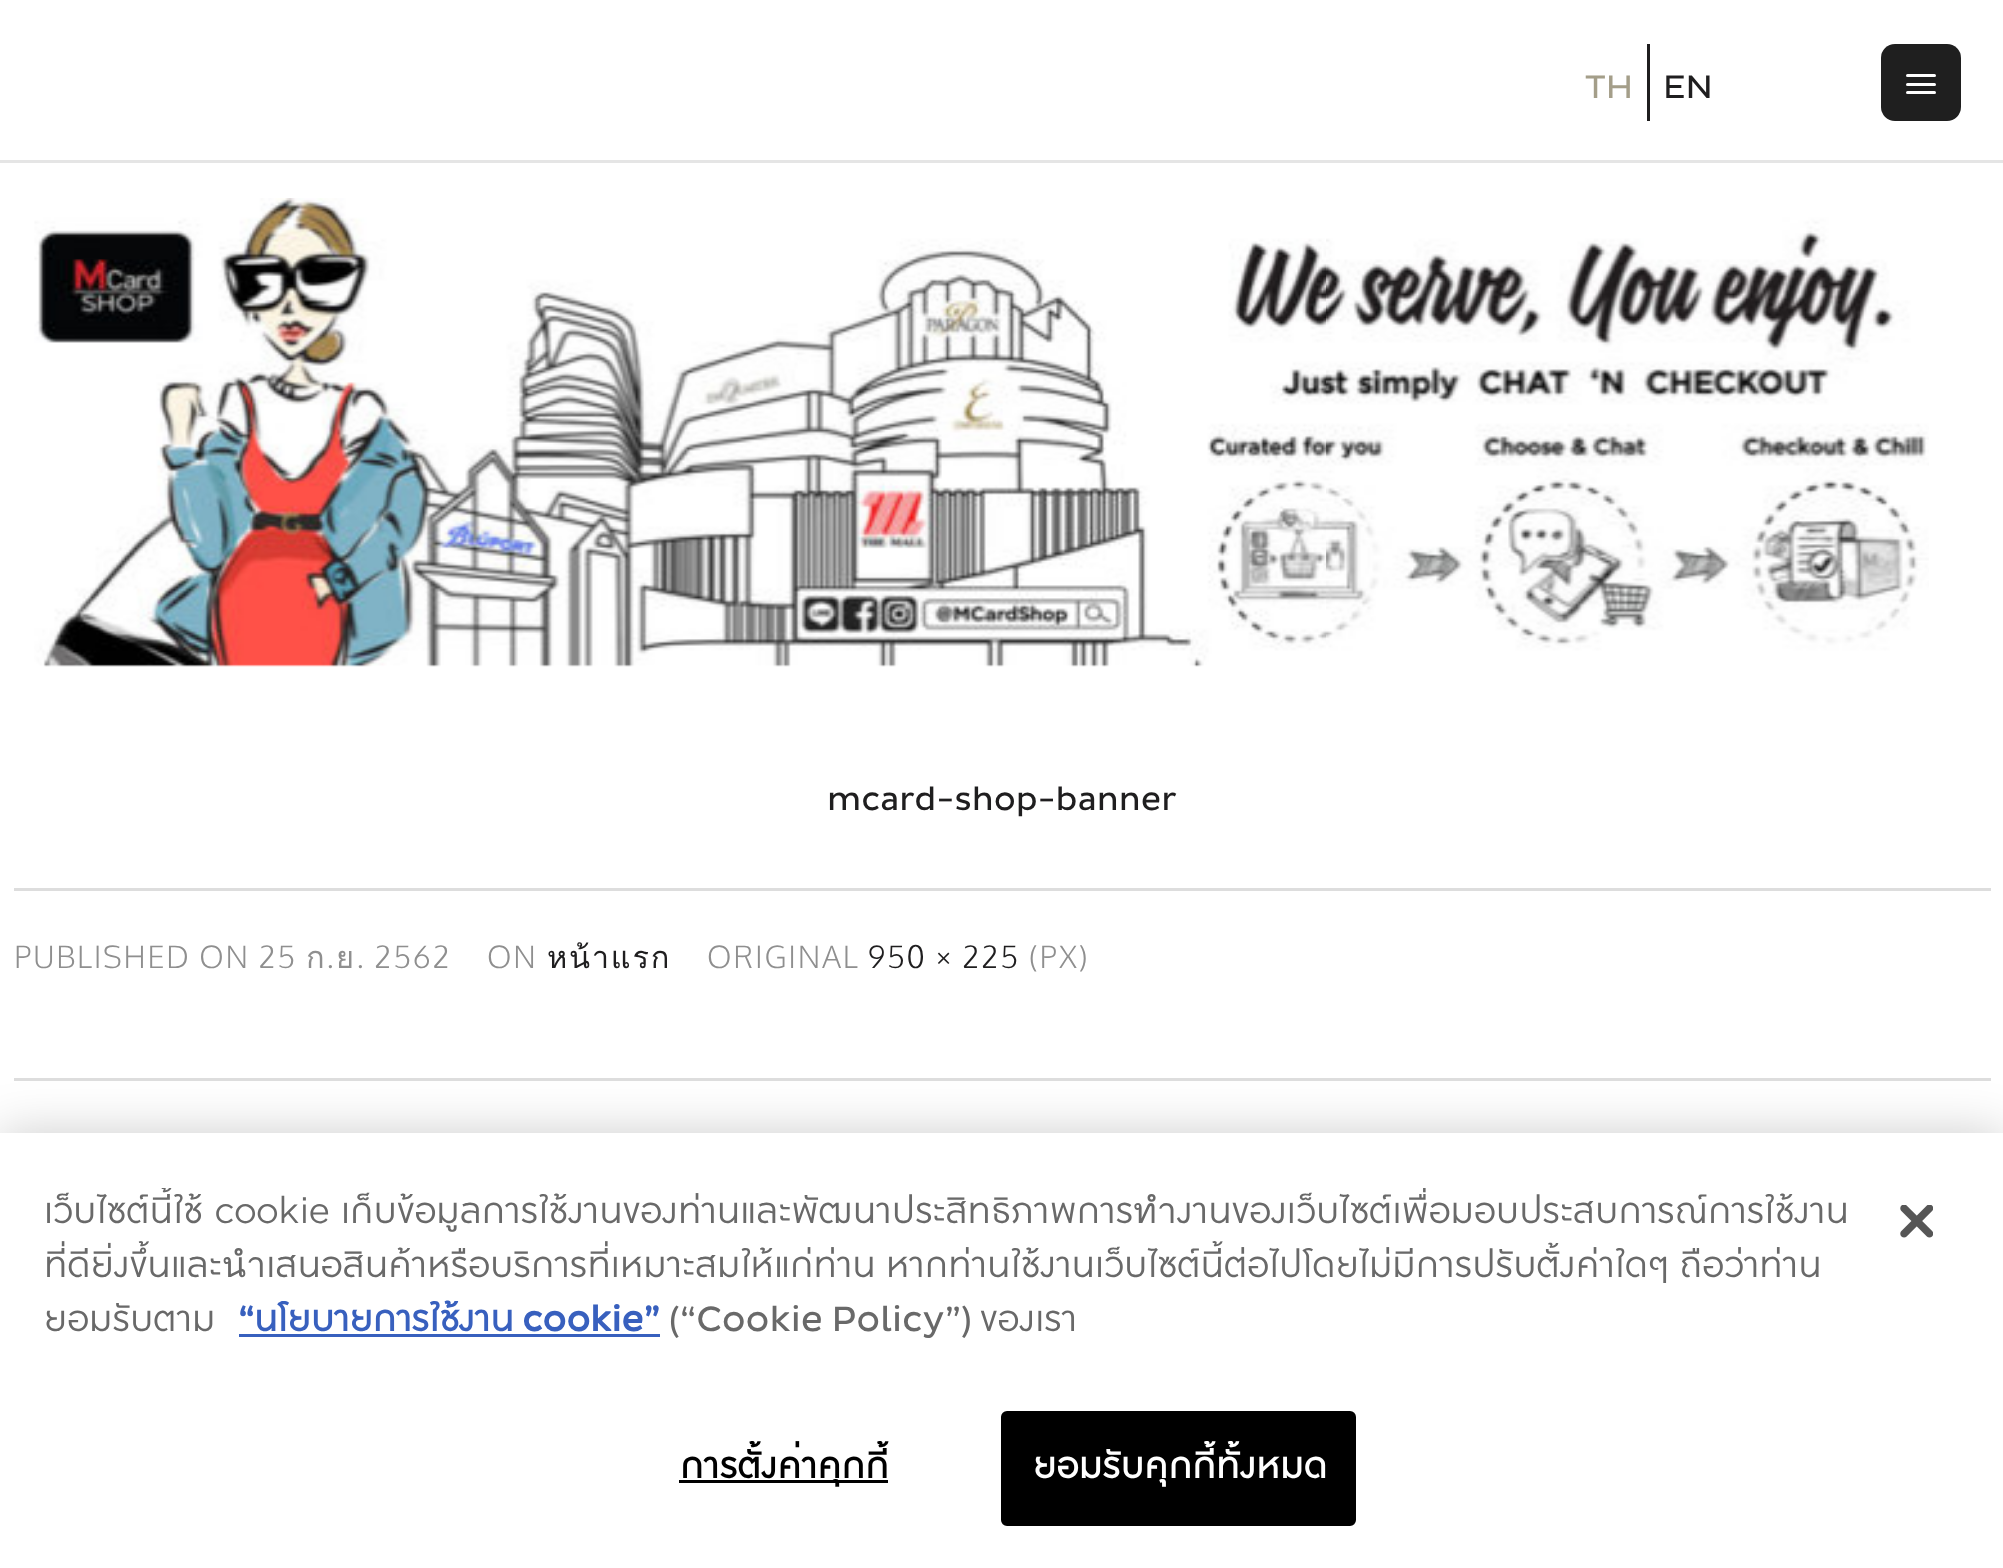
<svg xmlns="http://www.w3.org/2000/svg" xmlns:xlink="http://www.w3.org/1999/xlink" width="2003" height="1568" viewBox="0 0 2003 1568">
<style>
.cls-1{font:33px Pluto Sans;fill:#a49e89}
.cls-2{font:33px Pluto Sans;fill:#1f1e1f}
.cls-3{font:300 30.75px Oxygen;letter-spacing:1.75px;fill:#8f8f8f}
.cls-4{font:30.75px Loma;letter-spacing:1.75px;fill:#8f8f8f}
.cls-5{font:30.75px Loma;letter-spacing:1.75px;fill:#1f1e1f}
.cls-6{font:300 30.75px Oxygen;letter-spacing:1.75px;fill:#1f1e1f}
.cls-7{font:35.75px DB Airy;fill:#696969}
.cls-8{font:bold 35.75px Pluto Sans;fill:#3860be}
.cls-9{font:bold 35.75px DB Airy;fill:#3860be}
.cls-10{font:35.75px Pluto Sans;fill:#696969}
.cls-11{font:bold 35.75px DB Airy;letter-spacing:0.4px;fill:#000000}
.cls-12{font:bold 35.75px DB Airy;letter-spacing:0.4px;fill:#ffffff}
</style>
<defs>
<clipPath id="clip1"><rect x="44" y="1188" width="1818" height="195"/></clipPath>
</defs>
<rect width="100%" height="100%" fill="#ffffff"/>
<rect fill="#e5e5e5" x="0" y="160" width="2003" height="3"/>
<rect fill="#1f1e1f" x="1647" y="44" width="3" height="77"/>
<rect fill="#1f1f1f" x="1881" y="44" width="80" height="77" rx="14"/>
<rect fill="#ffffff" x="1906" y="91" width="30" height="3" rx="1.5"/>
<rect fill="#ffffff" x="1906" y="74" width="30" height="3" rx="1.5"/>
<rect fill="#ffffff" x="1906" y="83" width="30" height="3" rx="1.5"/>
<image xlink:href="image0.png" x="34" y="198" width="1895" height="469"/>
<rect fill="#dddddd" x="14" y="888" width="1977" height="3"/>
<rect fill="#dddddd" x="14" y="1078" width="1977" height="3"/>
<rect fill="#000000" fill-opacity="0.2" filter="blur(25px)" x="0" y="1133" width="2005" height="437"/>
<rect fill="#ffffff" x="0" y="1133" width="2003" height="435"/>
<rect fill="#3860be" x="239" y="1334" width="421" height="3"/>
<rect fill="#000000" x="679" y="1480" width="209" height="3"/>
<rect fill="#000000" stroke="#000000" stroke-width="3" x="1002.5" y="1412.5" width="352" height="112" rx="4.5"/>
<image xlink:href="image1.png" x="1900" y="1205" width="33" height="33"/>
<text class="cls-1" x="1585" y="98">TH</text>
<text class="cls-2" x="1663" y="98">EN</text>
<text class="cls-2" x="827" y="810">mcard-shop-banner</text>
<text class="cls-3" x="14" y="968">PUBLISHED ON 25</text>
<text class="cls-4" x="306" y="968">ก</text>
<text class="cls-3" x="326" y="968">.</text>
<text class="cls-4" x="336" y="968">ย</text>
<text class="cls-3" x="356" y="968">. 2562</text>
<text class="cls-3" x="487" y="968">ON</text>
<text class="cls-5" x="547" y="968">หน้าแรก</text>
<text class="cls-3" x="707" y="968">ORIGINAL</text>
<text class="cls-6" x="868" y="968">950 × 225</text>
<text class="cls-3" x="1029" y="968">(PX)</text>
<g clip-path="url(#clip1)">
<text class="cls-7" x="44" y="1223">เว็บไซต์นี้ใช้ cookie</text>
<text class="cls-7" x="341" y="1223">เก็บข้อมูลการใช้งานของท่านและพัฒนาประสิทธิภาพการทำงานของเว็บไซต์เพื่อมอบประสบการณ์การใช้งาน</text>
<text class="cls-7" x="44" y="1277" word-spacing="-2">ที่ดียิ่งขึ้นและนำเสนอสินค้าหรือบริการที่เหมาะสมให้แก่ท่าน หากท่านใช้งานเว็บไซต์นี้ต่อไปโดยไม่มีการปรับตั้งค่าใดๆ ถือว่าท่าน</text>
</g>
<text class="cls-7" x="44" y="1331">ยอมรับตาม</text>
<text class="cls-8" x="238" y="1331">“</text>
<text class="cls-9" x="254" y="1331">นโยบายการใช้งาน</text>
<text class="cls-8" x="522" y="1331">cookie”</text>
<text class="cls-10" x="669" y="1331">(“Cookie Policy”)</text>
<text class="cls-7" x="980" y="1331">ของเรา</text>
<text class="cls-11" x="680" y="1478">การตั้งค่าคุกกี้</text>
<text class="cls-12" x="1033" y="1478">ยอมรับคุกกี้ทั้งหมด</text>
</svg>
